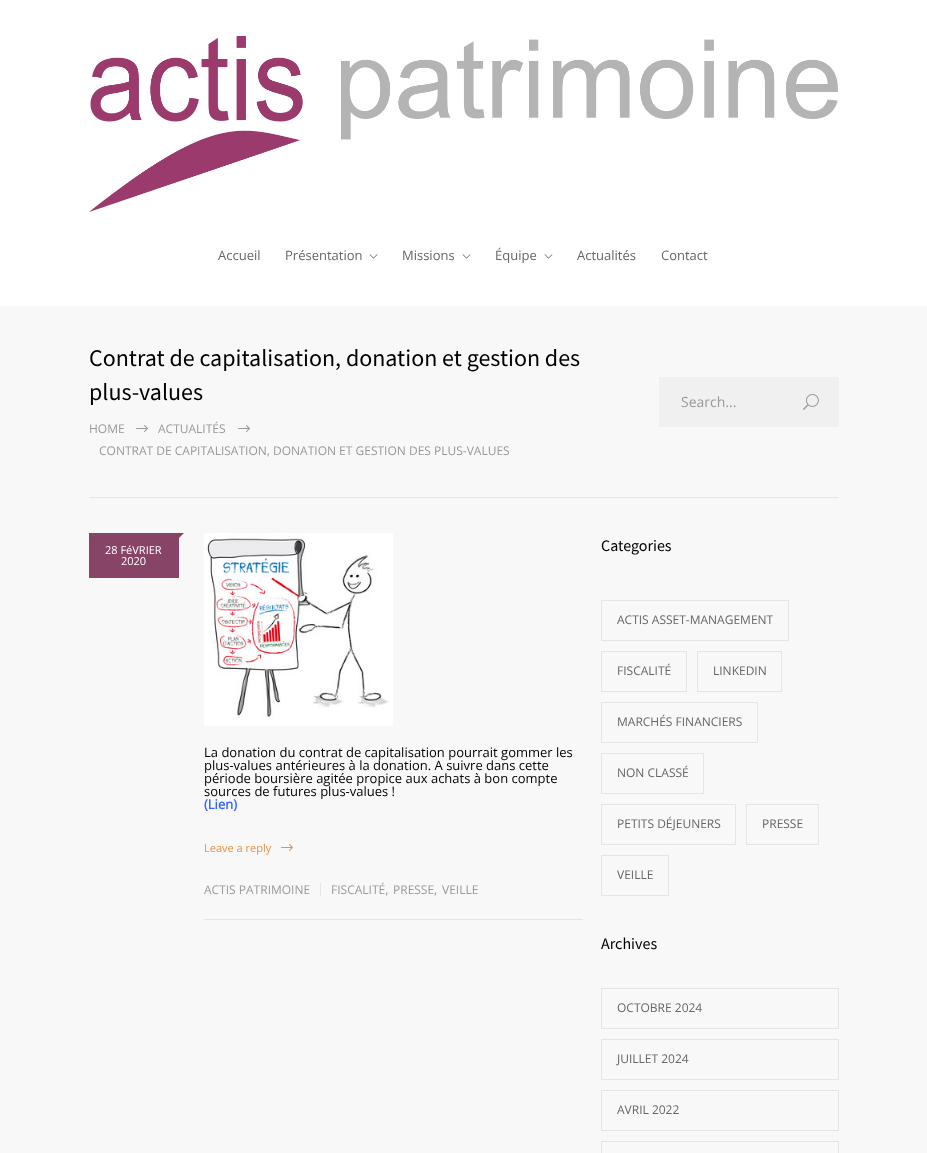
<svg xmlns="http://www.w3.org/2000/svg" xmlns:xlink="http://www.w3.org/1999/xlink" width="927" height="1153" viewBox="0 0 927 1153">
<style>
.cls-1{font:13px Open Sans;fill:#666666}
.cls-2{font:24px Source Sans Pro;fill:#000000}
.cls-3{font:12px Open Sans;fill:#999999}
.cls-4{font:14px Open Sans;fill:#999999}
.cls-5{font:11px Open Sans;fill:#ffffff}
.cls-6{font:13px Open Sans;fill:#000000}
.cls-7{font:bold 13px Open Sans;fill:#3366ff}
.cls-8{font:11px Open Sans;fill:#ea9144}
.cls-9{font:16px Source Sans Pro;fill:#000000}
.cls-10{font:12px Open Sans;fill:#666666}
</style>
<rect width="100%" height="100%" fill="#f8f8f8"/>
<rect fill="#ffffff" x="0" y="0" width="927" height="306"/>
<image xlink:href="image0.png" x="89" y="36" width="749" height="176"/>
<image xlink:href="image1.png" x="369" y="254" width="9" height="5"/>
<image xlink:href="image1.png" x="462" y="254" width="9" height="5"/>
<image xlink:href="image1.png" x="544" y="254" width="9" height="5"/>
<rect fill="#e5e5e5" x="89" y="497" width="750" height="1"/>
<image xlink:href="image2.png" x="136" y="425" width="12" height="7"/>
<image xlink:href="image2.png" x="238" y="425" width="12" height="7"/>
<rect fill="#f0f0f0" x="659" y="377" width="180" height="50"/>
<image xlink:href="image3.png" x="803" y="394" width="16" height="16"/>
<path fill="#884467" d="M179 533H184L179 538Z"/>
<rect fill="#884467" x="89" y="533" width="90" height="45"/>
<rect fill="#e5e5e5" x="204" y="919" width="379" height="1"/>
<image xlink:href="image4.png" x="204" y="533" width="189" height="193"/>
<image xlink:href="image5.png" x="281" y="844" width="12" height="7"/>
<rect fill="#e5e5e5" x="320" y="883" width="1" height="13"/>
<rect fill="none" stroke="#e5e5e5" x="601.5" y="600.5" width="187" height="40"/>
<rect fill="none" stroke="#e5e5e5" x="601.5" y="651.5" width="85" height="40"/>
<rect fill="none" stroke="#e5e5e5" x="697.5" y="651.5" width="84" height="40"/>
<rect fill="none" stroke="#e5e5e5" x="601.5" y="702.5" width="156" height="40"/>
<rect fill="none" stroke="#e5e5e5" x="601.5" y="753.5" width="102" height="40"/>
<rect fill="none" stroke="#e5e5e5" x="601.5" y="804.5" width="134" height="40"/>
<rect fill="none" stroke="#e5e5e5" x="746.5" y="804.5" width="72" height="40"/>
<rect fill="none" stroke="#e5e5e5" x="601.5" y="855.5" width="67" height="40"/>
<rect fill="none" stroke="#e5e5e5" x="601.5" y="988.5" width="237" height="40"/>
<rect fill="none" stroke="#e5e5e5" x="601.5" y="1039.5" width="237" height="40"/>
<rect fill="none" stroke="#e5e5e5" x="601.5" y="1090.5" width="237" height="40"/>
<rect fill="none" stroke="#e5e5e5" x="601.5" y="1141.5" width="237" height="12"/>
<text class="cls-1" x="218" y="260">Accueil</text>
<text class="cls-1" x="285" y="260">Présentation</text>
<text class="cls-1" x="402" y="260">Missions</text>
<text class="cls-1" x="495" y="260">Équipe</text>
<text class="cls-1" x="577" y="260">Actualités</text>
<text class="cls-1" x="661" y="260">Contact</text>
<text class="cls-2"><tspan x="89" y="366">Contrat de capitalisation, donation et gestion des</tspan><tspan x="89" y="400">plus-values</tspan></text>
<text class="cls-3" x="89" y="433">HOME</text>
<text class="cls-3" x="158" y="433">ACTUALITÉS</text>
<text class="cls-3" x="99" y="455">CONTRAT DE CAPITALISATION, DONATION ET GESTION DES PLUS-VALUES</text>
<text class="cls-4" x="681" y="407">Search...</text>
<text class="cls-5" x="105" y="554">28 FéVRIER</text>
<text class="cls-5" x="121" y="565">2020</text>
<text class="cls-6"><tspan x="204" y="757">La donation du contrat de capitalisation pourrait gommer les</tspan><tspan x="204" y="770">plus-values antérieures à la donation. A suivre dans cette</tspan><tspan x="204" y="783">période boursière agitée propice aux achats à bon compte</tspan><tspan x="204" y="796">sources de futures plus-values !</tspan></text>
<text class="cls-7" x="204" y="809">(Lien)</text>
<text class="cls-8" x="204" y="852">Leave a reply</text>
<text class="cls-3" x="204" y="894">ACTIS PATRIMOINE</text>
<text class="cls-3" x="331" y="894">FISCALITÉ,</text>
<text class="cls-3" x="393" y="894">PRESSE,</text>
<text class="cls-3" x="442" y="894">VEILLE</text>
<text class="cls-9" x="601" y="551">Categories</text>
<text class="cls-10" x="617" y="624">ACTIS ASSET-MANAGEMENT</text>
<text class="cls-10" x="617" y="675">FISCALITÉ</text>
<text class="cls-10" x="713" y="675">LINKEDIN</text>
<text class="cls-10" x="617" y="726">MARCHÉS FINANCIERS</text>
<text class="cls-10" x="617" y="777">NON CLASSÉ</text>
<text class="cls-10" x="617" y="828">PETITS DÉJEUNERS</text>
<text class="cls-10" x="762" y="828">PRESSE</text>
<text class="cls-10" x="617" y="879">VEILLE</text>
<text class="cls-9" x="601" y="949">Archives</text>
<text class="cls-10" x="617" y="1012">OCTOBRE 2024</text>
<text class="cls-10" x="617" y="1063">JUILLET 2024</text>
<text class="cls-10" x="617" y="1114">AVRIL 2022</text>
</svg>
